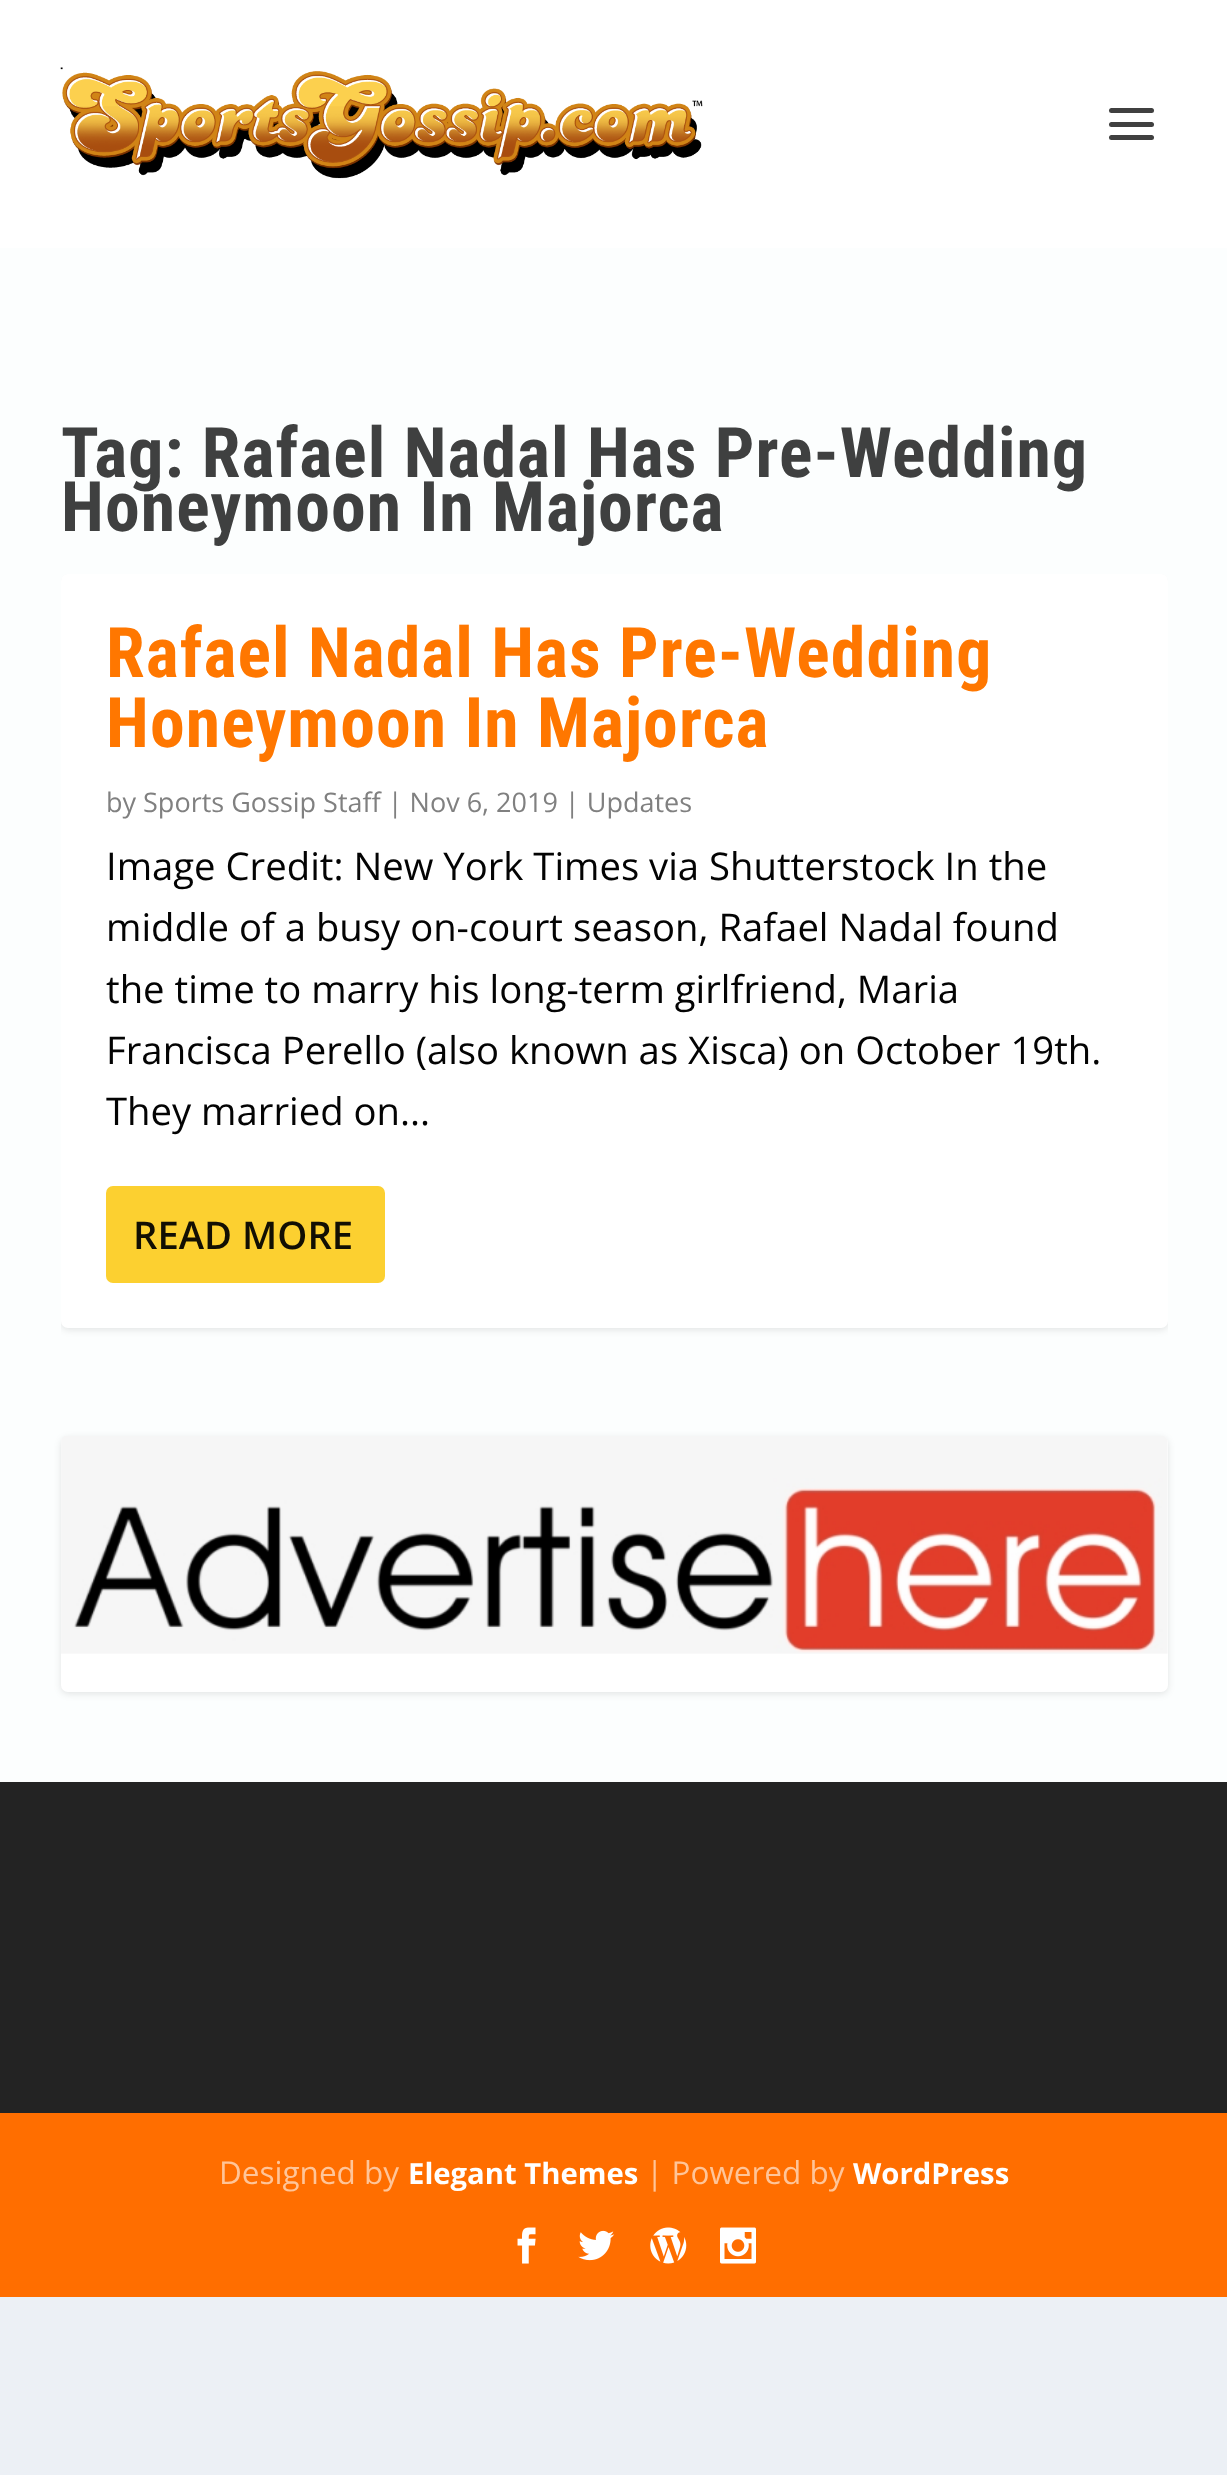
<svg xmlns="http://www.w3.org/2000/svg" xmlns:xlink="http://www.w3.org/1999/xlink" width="1227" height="2475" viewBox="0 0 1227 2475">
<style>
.cls-1{font:bold 69.75px Roboto Condensed;letter-spacing:1.1px;fill:#3f4040}
.cls-2{font:bold 69.75px Roboto Condensed;letter-spacing:1.1px;fill:#ff7700}
.cls-3{font:27px Open Sans;fill:#808080}
.cls-4{font:38.25px Open Sans;fill:#030303}
.cls-5{font:600 38.25px Open Sans;fill:#120f03}
.cls-6{font:31.5px Open Sans;fill:#ffc599}
.cls-7{font:bold 29.25px Open Sans;fill:#ffffff}
</style>
<defs>
<clipPath id="clip1"><rect x="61" y="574" width="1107" height="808" rx="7"/></clipPath>
</defs>
<rect width="100%" height="100%" fill="#ecf0f5"/>
<rect fill="#fcfefe" x="0" y="248" width="1227" height="1534"/>
<rect fill="#ffffff" x="0" y="0" width="1227" height="248"/>
<image xlink:href="image0.png" x="60" y="67" width="643" height="112"/>
<rect fill="#404040" x="1109" y="108" width="45" height="5" rx="2.5"/>
<rect fill="#404040" x="1109" y="122" width="45" height="5" rx="2.5"/>
<rect fill="#404040" x="1109" y="135" width="45" height="5" rx="2.5"/>
<g clip-path="url(#clip1)">
<rect fill="#000000" fill-opacity="0.1" filter="blur(3.5px)" x="61" y="576" width="1107" height="754" rx="7"/>
</g>
<rect fill="#ffffff" x="61" y="574" width="1107" height="754" rx="7"/>
<rect fill="#fcd030" x="106" y="1186" width="279" height="97" rx="7"/>
<rect fill="#000000" fill-opacity="0.1" filter="blur(3.5px)" x="61" y="1438" width="1107" height="256" rx="7"/>
<rect fill="#ffffff" x="61" y="1436" width="1107" height="256" rx="7"/>
<image xlink:href="image1.png" x="61" y="1436" width="1107" height="218"/>
<rect fill="#232323" x="0" y="1782" width="1227" height="331"/>
<rect fill="#ff6e00" x="0" y="2113" width="1227" height="184"/>
<image xlink:href="image2.png" x="517" y="2227" width="19" height="37"/>
<image xlink:href="image3.png" x="578" y="2230" width="37" height="31"/>
<image xlink:href="image4.png" x="650" y="2227" width="37" height="37"/>
<image xlink:href="image5.png" x="720" y="2227" width="36" height="37"/>
<text class="cls-1"><tspan x="61" y="477">Tag: Rafael Nadal Has Pre-Wedding</tspan><tspan x="61" y="531">Honeymoon In Majorca</tspan></text>
<text class="cls-2"><tspan x="106" y="677">Rafael Nadal Has Pre-Wedding</tspan><tspan x="106" y="747">Honeymoon In Majorca</tspan></text>
<text class="cls-3" x="106" y="812">by Sports Gossip Staff | Nov 6, 2019 | Updates</text>
<text class="cls-4"><tspan x="106" y="880">Image Credit: New York Times via Shutterstock In the</tspan><tspan x="106" y="941">middle of a busy on-court season, Rafael Nadal found</tspan><tspan x="106" y="1003">the time to marry his long-term girlfriend, Maria</tspan><tspan x="106" y="1064">Francisca Perello (also known as Xisca) on October 19th.</tspan><tspan x="106" y="1125">They married on...</tspan></text>
<text class="cls-5" x="133" y="1249">READ MORE</text>
<text class="cls-6" x="219" y="2184">Designed by</text>
<text class="cls-7" x="408" y="2184">Elegant Themes</text>
<text class="cls-6" x="646" y="2184">| Powered by</text>
<text class="cls-7" x="853" y="2184">WordPress</text>
</svg>
